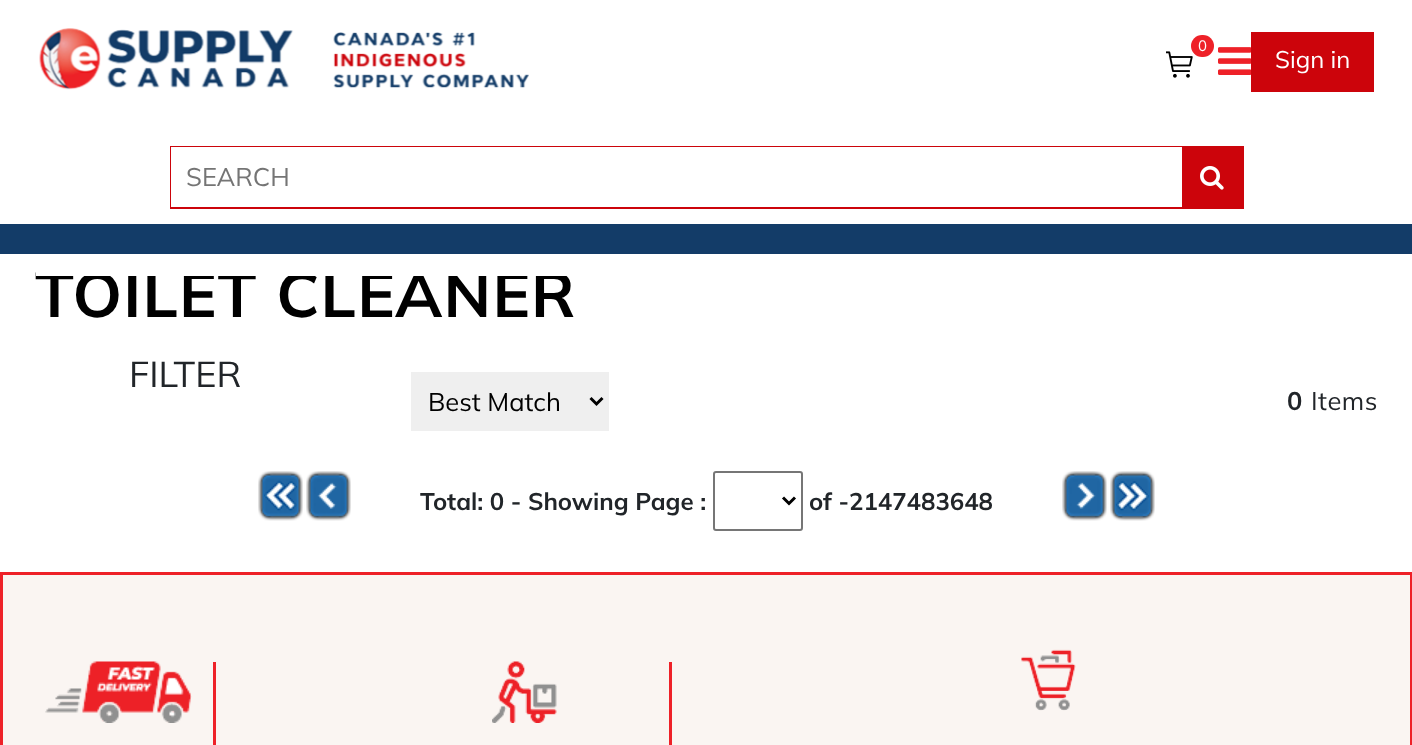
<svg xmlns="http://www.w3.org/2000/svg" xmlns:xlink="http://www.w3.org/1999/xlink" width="1412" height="745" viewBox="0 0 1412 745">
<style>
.cls-1{font:15px Mulish;fill:#ffffff}
.cls-2{font:24px Mulish;fill:#ffffff}
.cls-3{font:25.5px Mulish;fill:#757575}
.cls-4{font:bold 63px Mulish;letter-spacing:1.25px;fill:#000000}
.cls-5{font:36px Mulish;fill:#212529}
.cls-6{font:25.5px Mulish;fill:#000000}
.cls-7{font:bold 25.5px Mulish;letter-spacing:0.5px;fill:#212529}
.cls-8{font:25.5px Mulish;letter-spacing:0.5px;fill:#212529}
.cls-9{font:bold 24px Mulish;fill:#212529}
</style>
<rect width="100%" height="100%" fill="#ffffff"/>
<image xlink:href="image0.png" x="39" y="28" width="490" height="62"/>
<image xlink:href="image1.png" x="1166" y="51" width="27" height="27"/>
<rect fill="#ee2128" x="1191" y="35" width="23" height="22" rx="11"/>
<image xlink:href="image2.png" x="1218" y="47" width="33" height="28"/>
<rect fill="#cc040b" x="1251" y="32" width="123" height="60"/>
<rect fill="none" stroke="#cc040b" stroke-width="2" x="171" y="147" width="1072" height="61"/>
<rect fill="#ffffff" x="171" y="147" width="1011" height="60"/>
<rect fill="#cc040b" x="1182" y="148" width="60" height="59"/>
<image xlink:href="image3.png" x="1200" y="166" width="24" height="24"/>
<rect fill="#133c68" x="0" y="224" width="1412" height="30"/>
<rect fill="#efefef" x="411" y="372" width="198" height="59"/>
<path fill="none" stroke="#000000" stroke-width="3" d="M590.5 398L596.5 404L602.5 398"/>
<image xlink:href="image4.png" x="258" y="471" width="45" height="50"/>
<image xlink:href="image5.png" x="306" y="471" width="45" height="50"/>
<rect fill="none" stroke="#767676" stroke-width="2" x="714" y="472" width="88" height="58" rx="2"/>
<path fill="none" stroke="#000000" stroke-width="3" d="M783 497.5L789 503.5L795 497.5"/>
<image xlink:href="image6.png" x="1062" y="471" width="45" height="50"/>
<image xlink:href="image7.png" x="1110" y="471" width="45" height="50"/>
<rect fill="#faf5f2" stroke="#ee2128" stroke-width="3" x="1.5" y="573.5" width="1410" height="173"/>
<rect fill="#ee2128" x="213" y="662" width="3" height="83"/>
<image xlink:href="image8.png" x="45" y="661" width="147" height="62"/>
<rect fill="#ee2128" x="669" y="662" width="3" height="83"/>
<image xlink:href="image9.png" x="492" y="661" width="65" height="62"/>
<image xlink:href="image10.png" x="1021" y="649" width="55" height="62"/>
<text class="cls-1" x="1198" y="51">0</text>
<text class="cls-2" x="1275" y="68">Sign in</text>
<text class="cls-3" x="186" y="186">SEARCH</text>
<text class="cls-4" x="35" y="317">TOILET CLEANER</text>
<rect fill="#ffffff" x="36" y="271" width="531" height="5"/>
<text class="cls-5" x="129" y="387">FILTER</text>
<text class="cls-6" x="428" y="411">Best Match</text>
<text class="cls-7" x="1287" y="410">0</text>
<text class="cls-8" x="1311" y="410">Items</text>
<text class="cls-9" x="420" y="510">Total: 0 - Showing Page :</text>
<text class="cls-9" x="809" y="510">of -2147483648</text>
</svg>
